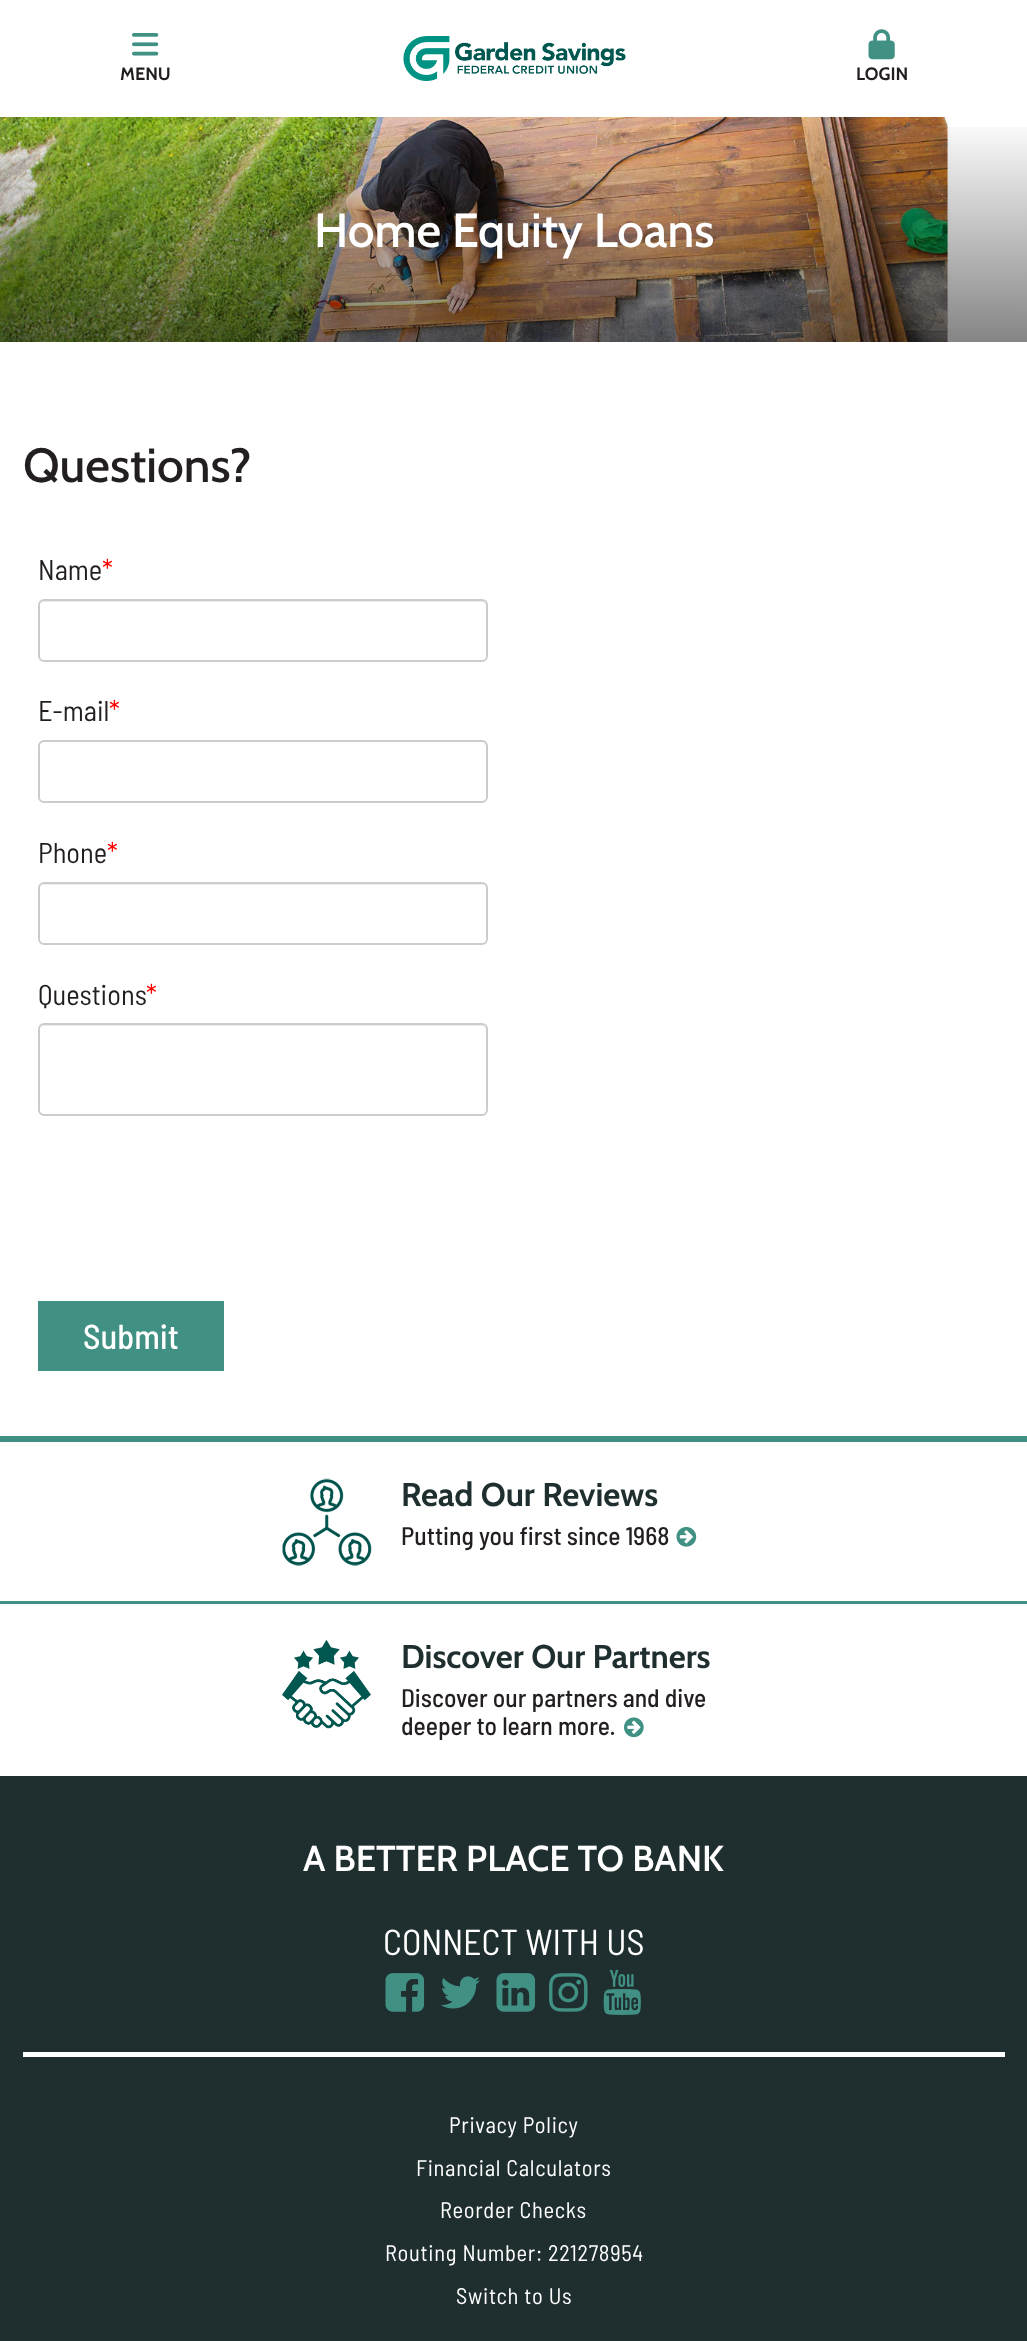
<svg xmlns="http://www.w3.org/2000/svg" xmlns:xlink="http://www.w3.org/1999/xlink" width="1027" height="2341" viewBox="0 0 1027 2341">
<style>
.cls-1{font:bold 18px Cabin;fill:#231f20}
.cls-2{font:500 48px Cabin;fill:#ffffff}
.cls-3{font:500 48px Cabin;fill:#231f20}
.cls-4{font:28.5px Barlow Semi Condensed;fill:#231f20}
.cls-5{font:28.5px Barlow Semi Condensed;fill:#ff0000}
.cls-6{font:500 34.5px Barlow Semi Condensed;fill:#ffffff}
.cls-7{font:bold 33px Cabin;fill:#1f2e2f}
.cls-8{font:500 25.5px Barlow Semi Condensed;fill:#231f20}
.cls-9{font:600 36px Cabin;fill:#ffffff}
.cls-10{font:36px Barlow Semi Condensed;fill:#ffffff}
.cls-11{font:22.5px Barlow Semi Condensed;letter-spacing:0.7px;fill:#ffffff}
</style>
<defs>
<linearGradient id="g1" gradientUnits="userSpaceOnUse" x1="514" y1="117" x2="514" y2="342"><stop offset="0" stop-color="#000000" stop-opacity="0"/><stop offset="1" stop-color="#000000" stop-opacity="0.48"/></linearGradient>
</defs>
<rect width="100%" height="100%" fill="#ffffff"/>
<image xlink:href="image0.png" x="132" y="33" width="27" height="23"/>
<image xlink:href="image1.png" x="403" y="36" width="223" height="45"/>
<image xlink:href="image2.png" x="868" y="29" width="27" height="31"/>
<image xlink:href="image3.png" x="0" y="117" width="951" height="225"/>
<rect fill="url(#g1)" x="0" y="127" width="1027" height="215"/>
<path fill="#ececec" d="M44 602H482C484 602 486 604 486 606C486 603 484 600 481 600H44C41 600 39 603 39 606C39 604 41 602 44 602Z"/>
<rect fill="none" stroke="#cccccc" stroke-width="2" x="39" y="600" width="448" height="61" rx="5"/>
<path fill="#ececec" d="M44 742H482C484 742 486 745 486 747C486 744 484 741 481 741H44C41 741 39 744 39 747C39 745 41 742 44 742Z"/>
<rect fill="none" stroke="#cccccc" stroke-width="2" x="39" y="741" width="448" height="61" rx="5"/>
<path fill="#ececec" d="M44 885H482C484 885 486 887 486 890C486 887 484 884 481 884H44C41 884 39 887 39 890C39 887 41 885 44 885Z"/>
<rect fill="none" stroke="#cccccc" stroke-width="2" x="39" y="883" width="448" height="61" rx="5"/>
<path fill="#ececec" d="M44 1026H482C484 1026 486 1028 486 1030C486 1027 484 1025 481 1025H44C41 1025 39 1027 39 1030C39 1028 41 1026 44 1026Z"/>
<rect fill="none" stroke="#cccccc" stroke-width="2" x="39" y="1024" width="448" height="91" rx="5"/>
<rect fill="#409183" x="38" y="1301" width="186" height="70"/>
<rect fill="#409183" x="0" y="1436" width="1027" height="6"/>
<image xlink:href="image4.png" x="282" y="1478" width="90" height="88"/>
<image xlink:href="image5.png" x="676" y="1527" width="21" height="20"/>
<rect fill="#409183" x="0" y="1601" width="1027" height="3"/>
<image xlink:href="image6.png" x="282" y="1639" width="89" height="90"/>
<image xlink:href="image7.png" x="624" y="1717" width="20" height="21"/>
<rect fill="#1f2e2f" x="0" y="1776" width="1027" height="565"/>
<image xlink:href="image8.png" x="385" y="1973" width="40" height="39"/>
<image xlink:href="image9.png" x="441" y="1976" width="39" height="33"/>
<image xlink:href="image10.png" x="496" y="1973" width="40" height="39"/>
<image xlink:href="image11.png" x="549" y="1973" width="39" height="39"/>
<image xlink:href="image12.png" x="603" y="1969" width="38" height="46"/>
<rect fill="#ffffff" x="23" y="2052" width="982" height="5"/>
<text class="cls-1" x="120" y="80">MENU</text>
<text class="cls-1" x="856" y="80">LOGIN</text>
<text class="cls-2" x="314" y="247">Home Equity Loans</text>
<text class="cls-3" x="23" y="482">Questions?</text>
<text class="cls-4" x="38" y="580">Name</text>
<text class="cls-5" x="102" y="580">*</text>
<text class="cls-4" x="38" y="721">E-mail</text>
<text class="cls-5" x="109" y="721">*</text>
<text class="cls-4" x="38" y="863">Phone</text>
<text class="cls-5" x="107" y="863">*</text>
<text class="cls-4" x="38" y="1005">Questions</text>
<text class="cls-5" x="146" y="1005">*</text>
<text class="cls-6" x="83" y="1349">Submit</text>
<text class="cls-7" x="401" y="1506">Read Our Reviews</text>
<text class="cls-8" x="401" y="1545">Putting you first since 1968</text>
<text class="cls-7" x="401" y="1668">Discover Our Partners</text>
<text class="cls-8"><tspan x="401" y="1707">Discover our partners and dive</tspan><tspan x="401" y="1735">deeper to learn more.</tspan></text>
<text class="cls-9" x="303" y="1871">A BETTER PLACE TO BANK</text>
<text class="cls-10" x="383" y="1955">CONNECT WITH US</text>
<text class="cls-11" x="449" y="2133">Privacy Policy</text>
<text class="cls-11" x="416" y="2176">Financial Calculators</text>
<text class="cls-11" x="440" y="2218">Reorder Checks</text>
<text class="cls-11" x="385" y="2261">Routing Number: 221278954</text>
<text class="cls-11" x="456" y="2304">Switch to Us</text>
</svg>
